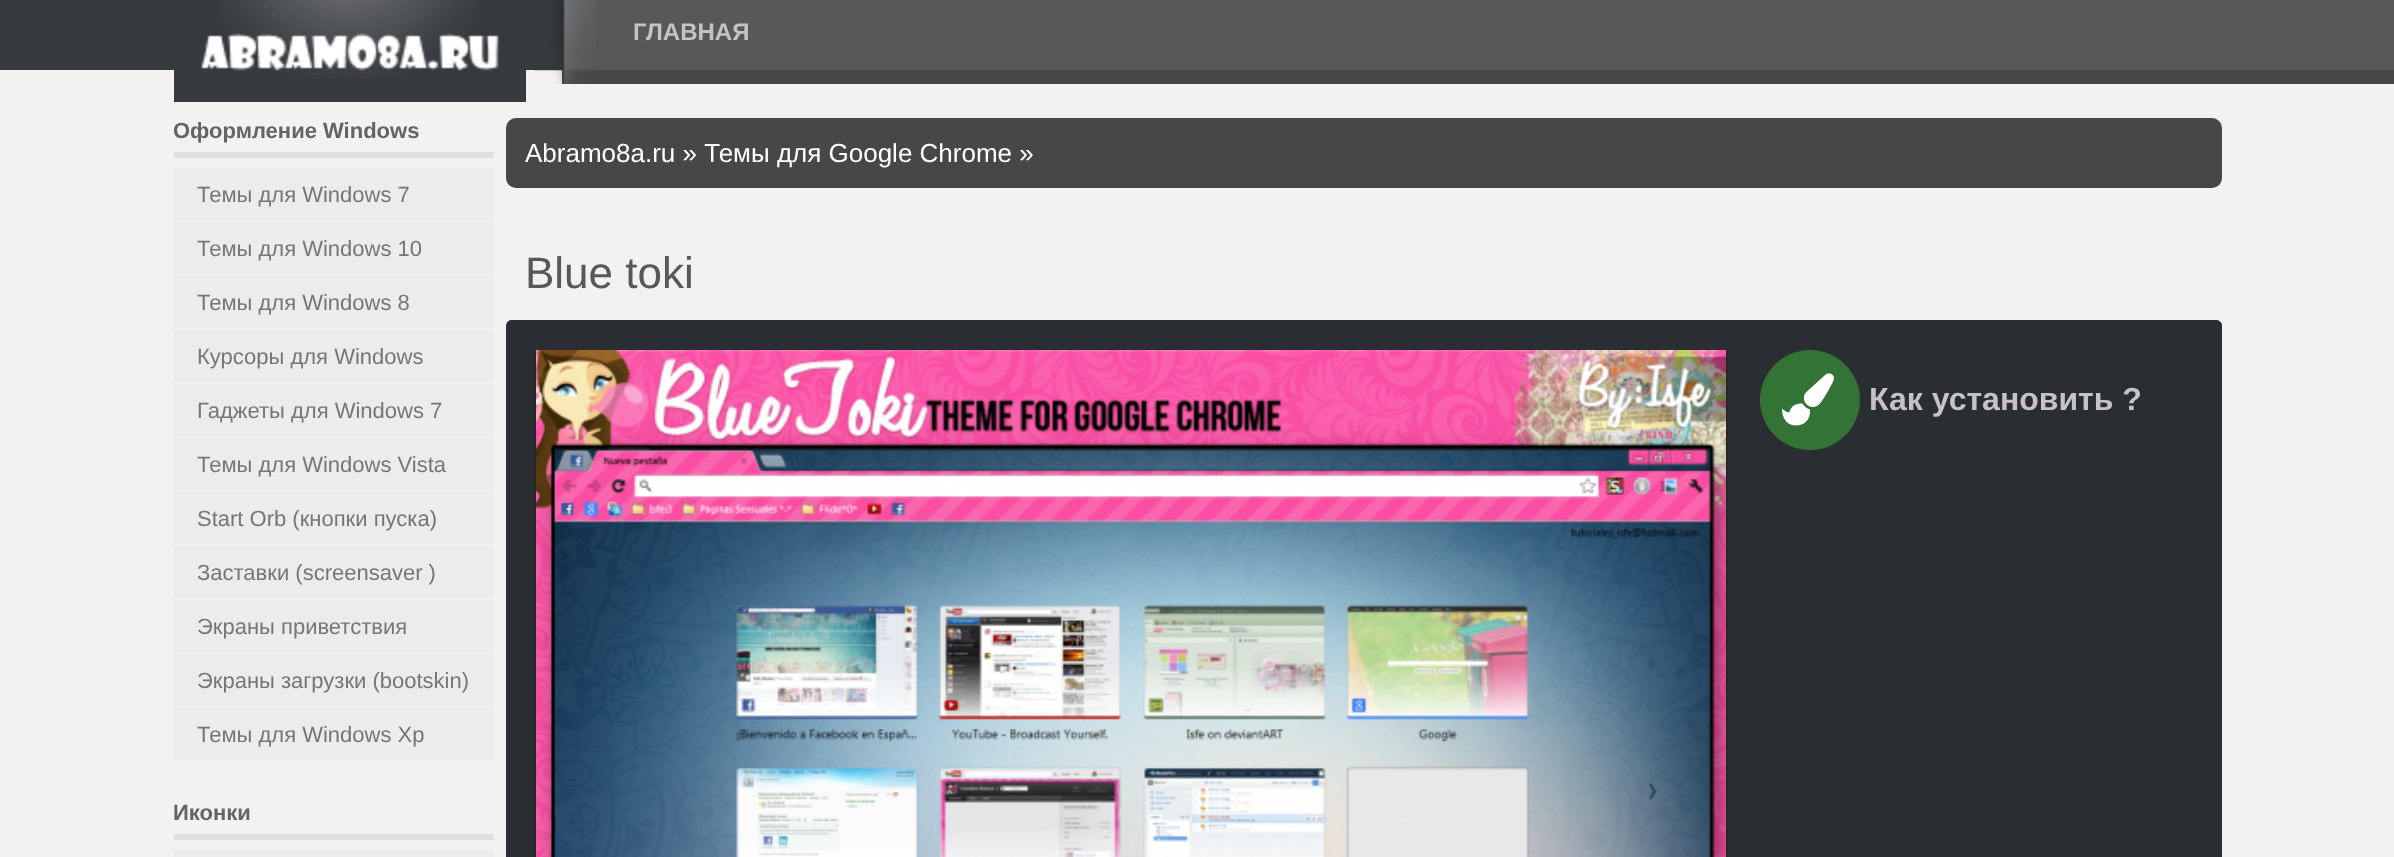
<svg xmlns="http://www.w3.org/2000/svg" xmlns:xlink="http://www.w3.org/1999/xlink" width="2394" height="857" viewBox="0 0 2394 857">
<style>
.cls-1{font:bold 24px Liberation Sans;fill:#c5c3c3}
.cls-2{font:bold 22px Liberation Sans;fill:#646464}
.cls-3{font:22px Liberation Sans;fill:#757678}
.cls-4{font:26px Liberation Sans;fill:#ffffff}
.cls-5{font:44px Liberation Sans;fill:#585858}
.cls-6{font:bold 32px Liberation Sans;fill:#c5c3c3}
</style>
<rect width="100%" height="100%" fill="#f2f2f2"/>
<rect fill="#36393d" x="0" y="0" width="562" height="70"/>
<rect fill="#585858" x="562" y="0" width="1832" height="70"/>
<rect fill="#474747" x="562" y="70" width="1832" height="14"/>
<rect fill="#36393d" x="174" y="70" width="352" height="32"/>
<image xlink:href="image0.png" x="219" y="0" width="260" height="79"/>
<image xlink:href="image1.png" x="201" y="33" width="298" height="38"/>
<image xlink:href="image2.png" x="534" y="0" width="62" height="84"/>
<rect fill="#e0e0e0" x="174" y="152" width="320" height="6"/>
<rect fill="#ececec" x="174" y="168" width="320" height="52"/>
<rect fill="#ececec" x="174" y="222" width="320" height="52"/>
<rect fill="#ececec" x="174" y="276" width="320" height="52"/>
<rect fill="#ececec" x="174" y="330" width="320" height="52"/>
<rect fill="#ececec" x="174" y="384" width="320" height="52"/>
<rect fill="#ececec" x="174" y="438" width="320" height="52"/>
<rect fill="#ececec" x="174" y="492" width="320" height="52"/>
<rect fill="#ececec" x="174" y="546" width="320" height="52"/>
<rect fill="#ececec" x="174" y="600" width="320" height="52"/>
<rect fill="#ececec" x="174" y="654" width="320" height="52"/>
<rect fill="#ececec" x="174" y="708" width="320" height="52"/>
<rect fill="#e0e0e0" x="174" y="834" width="320" height="6"/>
<rect fill="#ececec" x="174" y="850" width="320" height="7"/>
<rect fill="#474747" x="506" y="118" width="1716" height="70" rx="10"/>
<path fill="#2a2d31" d="M512 320H2216C2219.5 320 2222 322.5 2222 326V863H506V326C506 322.5 508.5 320 512 320Z"/>
<rect fill="#000000" fill-opacity="0.5" filter="blur(1px)" x="536" y="352" width="1190" height="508"/>
<image xlink:href="image3.png" x="536" y="350" width="1190" height="507"/>
<circle fill="#347336" cx="1810" cy="400" r="50"/>
<image xlink:href="image4.png" x="1782" y="373" width="52" height="53"/>
<text class="cls-1" x="633" y="40">ГЛАВНАЯ</text>
<text class="cls-2" x="173" y="138">Оформление Windows</text>
<text class="cls-3" x="197" y="202">Темы для Windows 7</text>
<text class="cls-3" x="197" y="256">Темы для Windows 10</text>
<text class="cls-3" x="197" y="310">Темы для Windows 8</text>
<text class="cls-3" x="197" y="364">Курсоры для Windows</text>
<text class="cls-3" x="197" y="418">Гаджеты для Windows 7</text>
<text class="cls-3" x="197" y="472">Темы для Windows Vista</text>
<text class="cls-3" x="197" y="526">Start Orb (кнопки пуска)</text>
<text class="cls-3" x="197" y="580">Заставки (screensaver )</text>
<text class="cls-3" x="197" y="634">Экраны приветствия</text>
<text class="cls-3" x="197" y="688">Экраны загрузки (bootskin)</text>
<text class="cls-3" x="197" y="742">Темы для Windows Xp</text>
<text class="cls-2" x="173" y="820">Иконки</text>
<text class="cls-4" x="525" y="162">Abramo8a.ru » Темы для Google Chrome »</text>
<text class="cls-5" x="525" y="288">Blue toki</text>
<text class="cls-6" x="1869" y="410">Как установить ?</text>
</svg>
